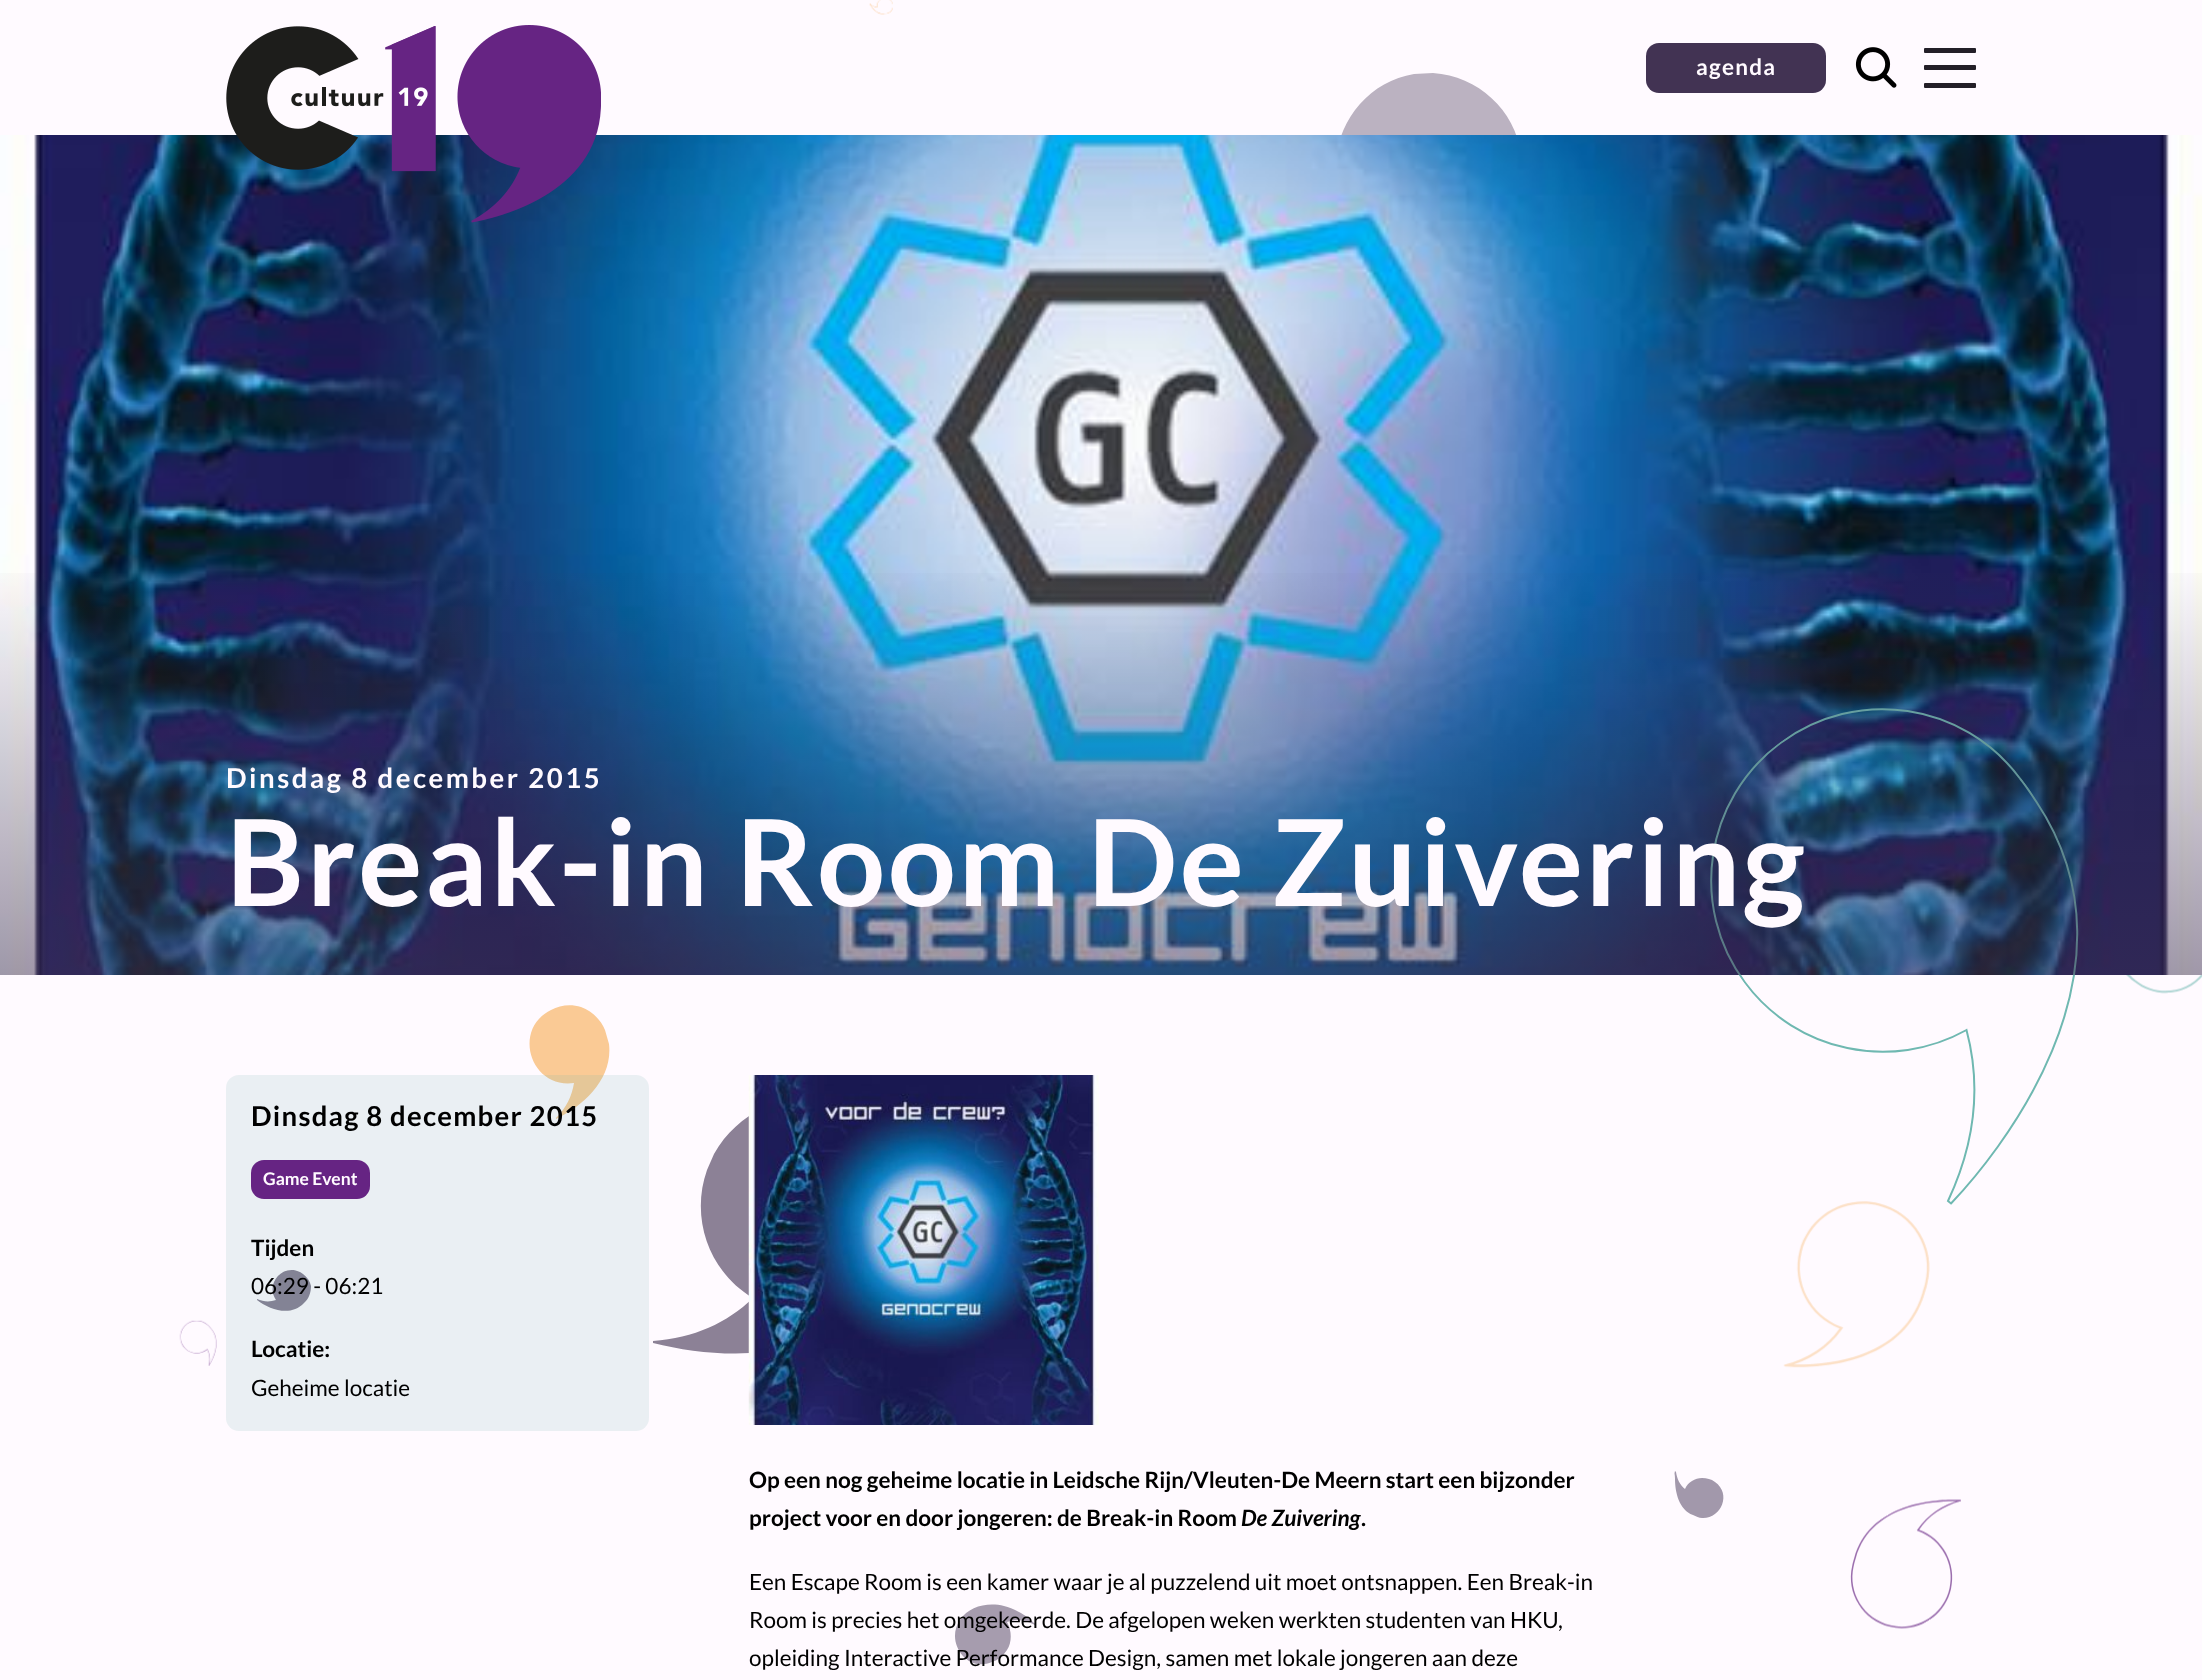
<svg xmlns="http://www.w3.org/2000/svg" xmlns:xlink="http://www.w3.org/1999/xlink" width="2202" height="1680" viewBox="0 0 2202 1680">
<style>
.cls-1{font:bold 22.5px Lato;letter-spacing:1.25px;fill:#fffaff}
.cls-2{font:bold 27.5px Lato;letter-spacing:2.5px;fill:#fffaff}
.cls-3{font:bold 120px Lato;letter-spacing:2.5px;fill:#fffaff}
.cls-4{font:bold 27.5px Lato;letter-spacing:1.25px;fill:#000000}
.cls-5{font:bold 17.5px Lato;fill:#fffaff}
.cls-6{font:bold 22.5px Lato;fill:#000000}
.cls-7{font:22.5px Lato;fill:#000000}
.cls-8{font:italic bold 22.5px Lato;fill:#000000}
</style>
<defs>
<clipPath id="clip1"><path d="M1641.5 845L1918.5 639.5L2200.5 1020L1924 1225.5Z"/></clipPath>
<linearGradient id="g1" gradientUnits="userSpaceOnUse" x1="1101" y1="555" x2="1101" y2="975"><stop offset="0" stop-color="#423353" stop-opacity="0"/><stop offset="1" stop-color="#423353" stop-opacity="0.5"/></linearGradient>
</defs>
<rect width="100%" height="100%" fill="#fffaff"/>
<image xlink:href="image0.png" x="869" y="0" width="24" height="15"/>
<path fill="#bbb2c1" d="M1521 154L1522 177L1517 215C1498 281 1425 318 1363 332L1362 330C1392 312 1412 288 1422 259C1379 255 1344 223 1337 181L1336 161C1339 118 1371 81 1414 74L1433 73C1478 76 1515 110 1521 154Z"/>
<image xlink:href="image1.png" x="2126" y="975" width="76" height="19"/>
<path fill="#faca95" d="M556 1119V1118C566 1108 572 1096 574 1083C530 1089 512 1029 551 1010C560 1005 571 1004 581 1007C592 1011 601 1020 605 1030L609 1044C613 1078 585 1105 556 1119Z"/>
<path fill="#867b91" d="M304 1303C309 1299 311 1292 311 1286C310 1281 307 1277 303 1274C286 1261 264 1282 276 1300C270 1302 264 1302 257 1299V1300C270 1310 291 1317 304 1303"/>
<path fill="#8c8196" d="M907 1250L899 1266L873 1303C819 1361 724 1361 653 1343V1341C694 1338 727 1323 753 1298C709 1272 690 1218 707 1170L714 1154C740 1107 798 1085 848 1105L857 1109C908 1135 930 1197 907 1249Z"/>
<image xlink:href="image2.png" x="1783" y="1201" width="147" height="167"/>
<image xlink:href="image3.png" x="179" y="1320" width="38" height="46"/>
<path fill="#a69cae" d="M1034 1623L1036 1624L1035 1625C1026 1620 1016 1619 1007 1622C1012 1631 1012 1642 1007 1650C1003 1656 998 1660 992 1662C966 1673 945 1641 960 1620C969 1606 988 1602 1004 1606C1015 1609 1026 1615 1034 1623Z"/>
<path fill="#a298ab" d="M1675 1471L1676 1472C1677 1479 1680 1485 1685 1489C1688 1482 1695 1478 1702 1478C1707 1478 1711 1479 1715 1482C1732 1494 1721 1519 1702 1518C1699 1518 1696 1516 1693 1515C1679 1510 1675 1492 1675 1479C1675 1473 1674 1475 1675 1471Z"/>
<image xlink:href="image4.png" x="1850" y="1499" width="111" height="130"/>
<image xlink:href="image7.png" x="0" y="135" width="2202" height="840"/>
<image xlink:href="image5.png" x="226" y="25" width="375" height="198"/>
<rect fill="#423353" x="1646" y="43" width="180" height="50" rx="13"/>
<image xlink:href="image6.png" x="1855" y="47" width="42" height="41"/>
<rect fill="#231f28" x="1924" y="48" width="52" height="5" rx="1"/>
<rect fill="#231f28" x="1924" y="65" width="52" height="5" rx="1"/>
<rect fill="#231f28" x="1924" y="83" width="52" height="5" rx="1"/>
<g clip-path="url(#clip1)">
<path fill="none" stroke="#6fb8b1" stroke-width="2" d="M2020 778.5C1963.5 702.5 1856.5 686.5 1780.5 743C1704.5 799.5 1688.5 906.5 1745 982.5C1797 1052.5 1892 1071.5 1966.5 1030C1981 1084.5 1975.5 1142.5 1948 1201L1951 1203.5C1992 1160.5 2151 973.5 2036.5 802C2029.5 791.5 2027 787 2020 778.5"/>
</g>
<rect fill="url(#g1)" x="0" y="573" width="2202" height="402"/>
<rect fill="#6fb8b1" fill-opacity="0.15" x="226" y="1075" width="423" height="356" rx="13"/>
<rect fill="#662483" x="251" y="1160" width="119" height="39" rx="13"/>
<image xlink:href="image8.png" x="748" y="1075" width="351" height="350"/>
<text class="cls-1" x="1696" y="75">agenda</text>
<text class="cls-2" x="226" y="788">Dinsdag 8 december 2015</text>
<text class="cls-3" x="226" y="906">Break-in Room De Zuivering</text>
<text class="cls-4" x="251" y="1126">Dinsdag 8 december 2015</text>
<text class="cls-5" x="263" y="1185">Game Event</text>
<text class="cls-6" x="251" y="1256">Tijden</text>
<text class="cls-7" x="251" y="1294">06:29 - 06:21</text>
<text class="cls-6" x="251" y="1357">Locatie:</text>
<text class="cls-7" x="251" y="1396">Geheime locatie</text>
<text class="cls-6"><tspan x="749" y="1488">Op een nog geheime locatie in Leidsche Rijn/Vleuten-De Meern start een bijzonder</tspan><tspan x="749" y="1526">project voor en door jongeren: de Break-in Room</tspan></text>
<text class="cls-8" x="1241" y="1526">De Zuivering</text>
<text class="cls-6" x="1361" y="1526">.</text>
<text class="cls-7"><tspan x="749" y="1590">Een Escape Room is een kamer waar je al puzzelend uit moet ontsnappen. Een Break-in</tspan><tspan x="749" y="1628">Room is precies het omgekeerde. De afgelopen weken werkten studenten van HKU,</tspan><tspan x="749" y="1666">opleiding Interactive Performance Design, samen met lokale jongeren aan deze</tspan></text>
</svg>
